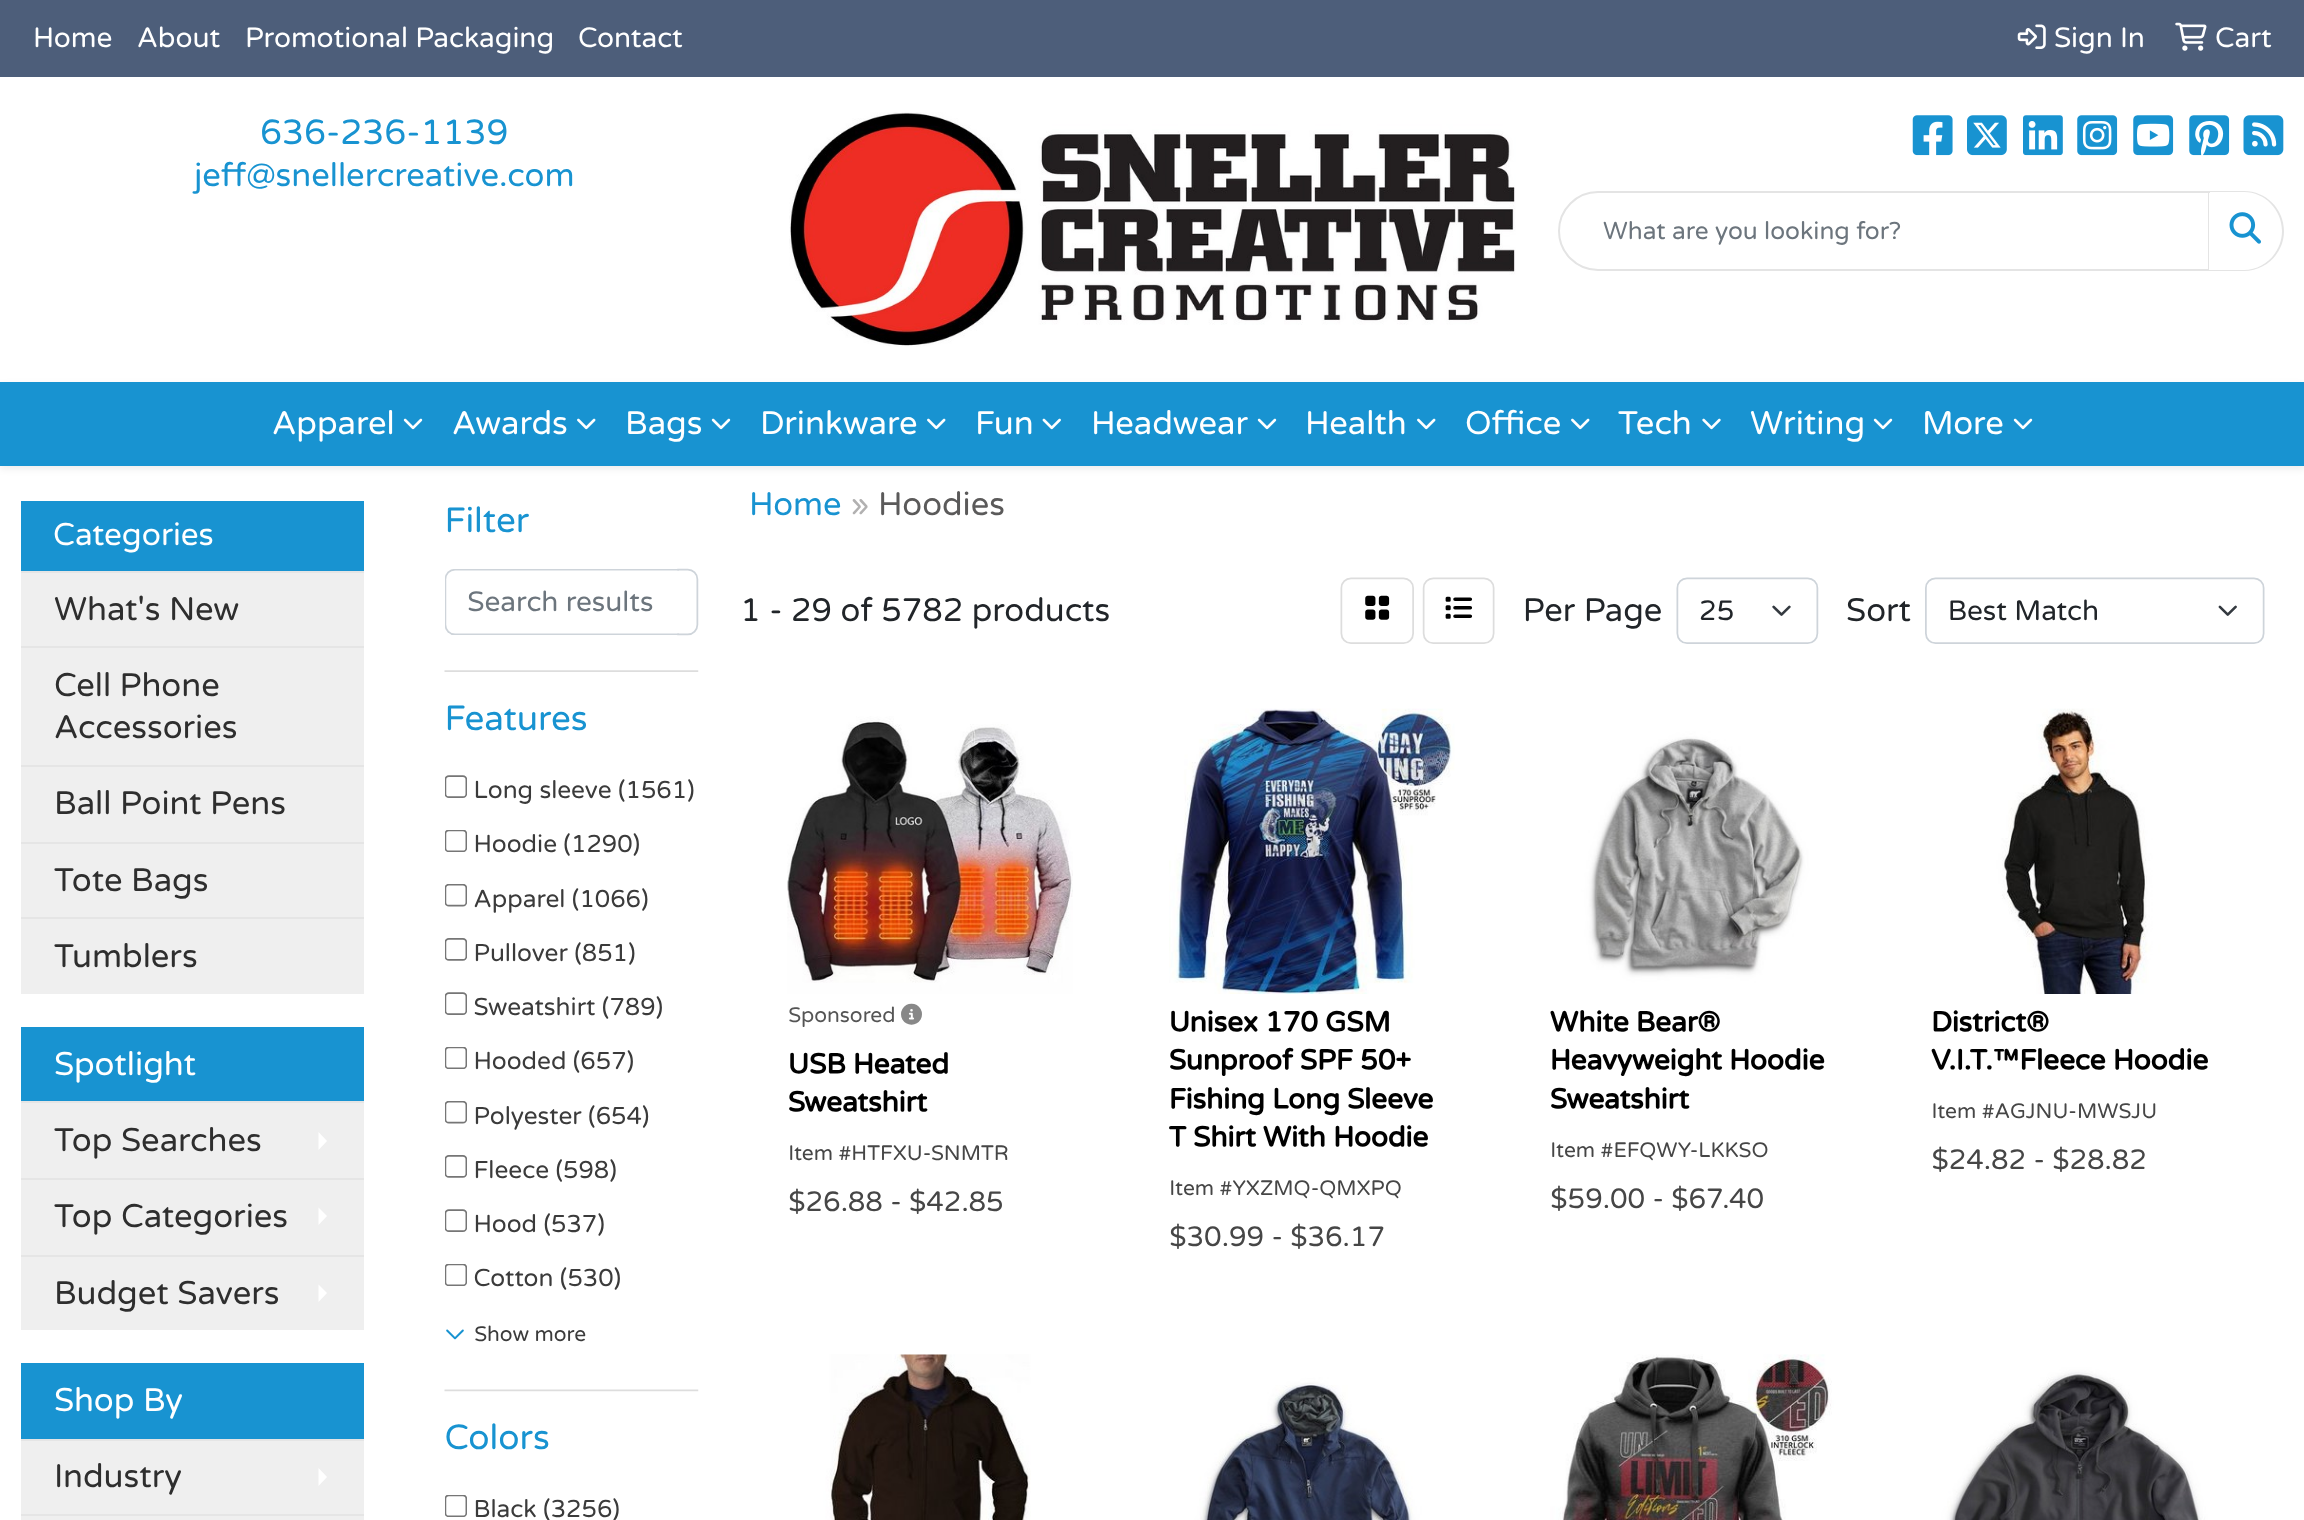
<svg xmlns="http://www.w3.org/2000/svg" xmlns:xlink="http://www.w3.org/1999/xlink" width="2304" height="1520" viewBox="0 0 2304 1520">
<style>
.cls-1{font:28px Varela Round;fill:#ffffff}
.cls-2{font:35px Varela Round;fill:#1893d1}
.cls-3{font:32.75px Varela Round;fill:#1893d1}
.cls-4{font:24.5px Varela Round;fill:#6c757d}
.cls-5{font:32.75px Varela Round;fill:#ffffff}
.cls-6{font:31.5px Varela Round;fill:#ffffff}
.cls-7{font:32.75px Varela Round;fill:#2e2e2e}
</style>
<rect width="100%" height="100%" fill="#ffffff"/>
<rect fill="#4d5e7a" x="0" y="0" width="2304" height="77"/>
<image xlink:href="image0.png" x="2017" y="24" width="29" height="25"/>
<image xlink:href="image1.png" x="2175" y="22" width="32" height="29"/>
<image xlink:href="image2.png" x="789" y="112" width="727" height="235"/>
<image xlink:href="image3.png" x="1912" y="115" width="41" height="41"/>
<image xlink:href="image4.png" x="1967" y="115" width="40" height="41"/>
<image xlink:href="image5.png" x="2023" y="115" width="40" height="41"/>
<image xlink:href="image6.png" x="2077" y="115" width="41" height="41"/>
<image xlink:href="image7.png" x="2133" y="115" width="41" height="41"/>
<image xlink:href="image8.png" x="2189" y="115" width="41" height="41"/>
<image xlink:href="image9.png" x="2243" y="115" width="41" height="41"/>
<path fill="none" stroke="#e4e4e4" stroke-width="2" d="M1598 192H2209V270H1598C1576.5 270 1559 252.5 1559 231C1559 209.5 1576.5 192 1598 192Z"/>
<path fill="#ffffff" d="M2209 193H2243.5C2265 193 2282 210 2282 231.5C2282 253 2265 270 2243.5 270H2209Z"/>
<path fill="#e4e4e4" fill-rule="evenodd" d="M2208 191H2244C2266 191 2284 209 2284 231C2284 253 2266 271 2244 271H2208ZM2208 192H2244C2265 192 2282 210 2282 231C2282 252 2265 270 2244 270H2208Z"/>
<image xlink:href="image10.png" x="2229" y="212" width="32" height="32"/>
<rect fill="#000000" fill-opacity="0.07" filter="blur(3.5px)" x="0" y="385" width="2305" height="84"/>
<rect fill="#1893d1" x="0" y="382" width="2304" height="84"/>
<image xlink:href="image11.png" x="403" y="418" width="20" height="12"/>
<image xlink:href="image12.png" x="577" y="418" width="19" height="12"/>
<image xlink:href="image11.png" x="711" y="418" width="20" height="12"/>
<image xlink:href="image12.png" x="927" y="418" width="19" height="12"/>
<image xlink:href="image13.png" x="1042" y="418" width="19" height="12"/>
<image xlink:href="image11.png" x="1257" y="418" width="20" height="12"/>
<image xlink:href="image12.png" x="1417" y="418" width="19" height="12"/>
<image xlink:href="image12.png" x="1571" y="418" width="19" height="12"/>
<image xlink:href="image14.png" x="1702" y="418" width="19" height="12"/>
<image xlink:href="image11.png" x="1873" y="418" width="20" height="12"/>
<image xlink:href="image11.png" x="2013" y="418" width="20" height="12"/>
<rect fill="#1893d1" x="21" y="501" width="343" height="70"/>
<rect fill="#efefef" x="21" y="573" width="343" height="73"/>
<rect fill="#e5e5e5" x="21" y="571" width="343" height="2"/>
<rect fill="#efefef" x="21" y="648" width="343" height="117"/>
<rect fill="#e5e5e5" x="21" y="646" width="343" height="2"/>
<rect fill="#efefef" x="21" y="767" width="343" height="75"/>
<rect fill="#e5e5e5" x="21" y="765" width="343" height="2"/>
<rect fill="#efefef" x="21" y="844" width="343" height="73"/>
<rect fill="#e5e5e5" x="21" y="842" width="343" height="2"/>
<rect fill="#efefef" x="21" y="919" width="343" height="75"/>
<rect fill="#e5e5e5" x="21" y="917" width="343" height="2"/>
<rect fill="#1893d1" x="21" y="1027" width="343" height="74"/>
<rect fill="#efefef" x="21" y="1103" width="343" height="75"/>
<rect fill="#e5e5e5" x="21" y="1101" width="343" height="2"/>
<path fill="#ffffff" d="M318.5 1150V1132L327 1141Z"/>
<rect fill="#efefef" x="21" y="1180" width="343" height="75"/>
<rect fill="#e5e5e5" x="21" y="1178" width="343" height="2"/>
<path fill="#ffffff" d="M318.5 1225V1207.5L327 1216Z"/>
<rect fill="#efefef" x="21" y="1257" width="343" height="73"/>
<rect fill="#e5e5e5" x="21" y="1255" width="343" height="2"/>
<path fill="#ffffff" d="M318.5 1302V1284.5L327 1293Z"/>
<rect fill="#1893d1" x="21" y="1363" width="343" height="76"/>
<rect fill="#efefef" x="21" y="1441" width="343" height="73"/>
<rect fill="#e5e5e5" x="21" y="1439" width="343" height="2"/>
<path fill="#ffffff" d="M318.5 1486V1468L327 1477Z"/>
<rect fill="#efefef" x="21" y="1516" width="343" height="4"/>
<rect fill="#e5e5e5" x="21" y="1514" width="343" height="2"/>
<image xlink:href="image15.png" x="444" y="491" width="1821" height="1029"/>
<text class="cls-1" x="33" y="47">Home</text>
<text class="cls-1" x="137" y="47">About</text>
<text class="cls-1" x="245" y="47">Promotional Packaging</text>
<text class="cls-1" x="578" y="47">Contact</text>
<text class="cls-1" x="2054" y="47">Sign In</text>
<text class="cls-1" x="2215" y="47">Cart</text>
<text class="cls-2" x="260" y="144">636-236-1139</text>
<text class="cls-3" x="194" y="186">jeff@snellercreative.com</text>
<text class="cls-4" x="1603" y="239">What are you looking for?</text>
<text class="cls-5" x="272" y="434">Apparel</text>
<text class="cls-5" x="452" y="434">Awards</text>
<text class="cls-5" x="625" y="434">Bags</text>
<text class="cls-5" x="760" y="434">Drinkware</text>
<text class="cls-5" x="975" y="434">Fun</text>
<text class="cls-5" x="1091" y="434">Headwear</text>
<text class="cls-5" x="1305" y="434">Health</text>
<text class="cls-5" x="1465" y="434">Office</text>
<text class="cls-5" x="1618" y="434">Tech</text>
<text class="cls-5" x="1750" y="434">Writing</text>
<text class="cls-5" x="1922" y="434">More</text>
<text class="cls-6" x="53" y="545">Categories</text>
<text class="cls-7" x="54" y="620">What's New</text>
<text class="cls-7"><tspan x="54" y="696">Cell Phone</tspan><tspan x="54" y="738">Accessories</tspan></text>
<text class="cls-7" x="54" y="814">Ball Point Pens</text>
<text class="cls-7" x="54" y="891">Tote Bags</text>
<text class="cls-7" x="54" y="967">Tumblers</text>
<text class="cls-5" x="54" y="1075">Spotlight</text>
<text class="cls-7" x="54" y="1151">Top Searches</text>
<text class="cls-7" x="54" y="1227">Top Categories</text>
<text class="cls-7" x="54" y="1304">Budget Savers</text>
<text class="cls-5" x="54" y="1411">Shop By</text>
<text class="cls-7" x="54" y="1487">Industry</text>
</svg>
